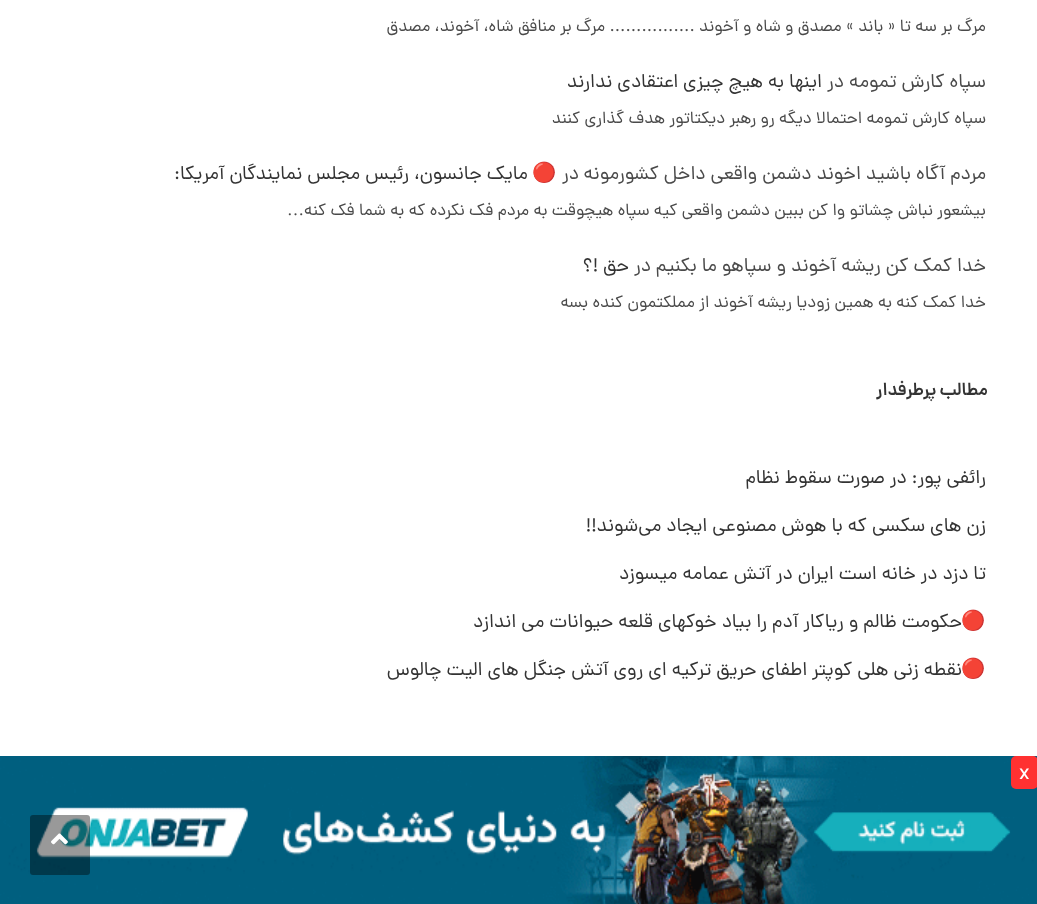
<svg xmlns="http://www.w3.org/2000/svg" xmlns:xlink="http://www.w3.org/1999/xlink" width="1037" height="904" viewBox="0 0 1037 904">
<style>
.cls-1{font:17.05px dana;direction:rtl;fill:#4a4a4a}
.cls-2{font:19.5px dana;direction:rtl;fill:#4a4a4a}
.cls-3{font:19.5px dana;direction:rtl;fill:#333333}
.cls-4{font:19.5px Noto Color Emoji;direction:rtl;fill:#333333}
.cls-5{font:17.05px Liberation Serif;direction:rtl;fill:#4a4a4a}
.cls-6{font:600 18px dana;letter-spacing:0.1px;direction:rtl;fill:#333333}
.cls-7{font:22px dana;fill:#ffffff}
</style>
<rect width="100%" height="100%" fill="#ffffff"/>
<image xlink:href="image0.png" x="0" y="756" width="1037" height="148"/>
<rect fill="#ff3131" x="1011" y="756" width="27" height="33" rx="5"/>
<rect fill="#000000" fill-opacity="0.4" x="30" y="815" width="60" height="60" rx="3"/>
<image xlink:href="image1.png" x="51" y="833" width="17" height="12"/>
<text class="cls-1" x="986" y="31">مرگ بر سه تا « باند » مصدق و شاه و آخوند ................ مرگ بر منافق شاه، آخوند، مصدق</text>
<text class="cls-2" x="986" y="87">سپاه کارش تمومه</text>
<text class="cls-2" x="844" y="87">در</text>
<text class="cls-3" x="822" y="87">اینها به هیچ چیزی اعتقادی ندارند</text>
<text class="cls-1" x="986" y="123">سپاه کارش تمومه احتمالا دیگه رو رهبر دیکتاتور هدف گذاری کنند</text>
<text class="cls-2" x="986" y="179">مردم آگاه باشید اخوند دشمن واقعی داخل کشورمونه</text>
<text class="cls-2" x="579" y="179">در</text>
<text class="cls-4" x="557" y="179">🔴</text>
<text class="cls-3" x="528" y="179">مایک جانسون، رئیس مجلس نمایندگان آمریکا:</text>
<text class="cls-1" x="986" y="215">بیشعور نباش چشاتو وا کن ببین دشمن واقعی کیه سپاه هیچوقت به مردم فک نکرده که به شما فک کنه</text>
<text class="cls-5" x="304" y="215">…</text>
<text class="cls-2" x="986" y="271">خدا کمک کن ریشه آخوند و سپاهو ما بکنیم</text>
<text class="cls-2" x="651" y="271">در</text>
<text class="cls-3" x="629" y="271">حق !؟</text>
<text class="cls-1" x="986" y="307">خدا کمک کنه به همین زودیا ریشه آخوند از مملکتمون کنده بسه</text>
<text class="cls-6" x="988" y="395" word-spacing="-1">مطالب پرطرفدار</text>
<text class="cls-3" x="986" y="483">رائفی پور: در صورت سقوط نظام</text>
<text class="cls-3" x="986" y="531">زن های سکسی که با هوش مصنوعی ایجاد می‌شوند!!</text>
<text class="cls-3" x="986" y="579">تا دزد در خانه است ایران در آتش عمامه میسوزد</text>
<text class="cls-4" x="986" y="627">🔴</text>
<text class="cls-3" x="962" y="627">حکومت ظالم و ریاکار آدم را بیاد خوکهای قلعه حیوانات می اندازد</text>
<text class="cls-4" x="986" y="675">🔴</text>
<text class="cls-3" x="962" y="675">نقطه زنی هلی کوپتر اطفای حریق ترکیه ای روی آتش جنگل های الیت چالوس</text>
<text class="cls-7" x="1019" y="779">x</text>
</svg>
